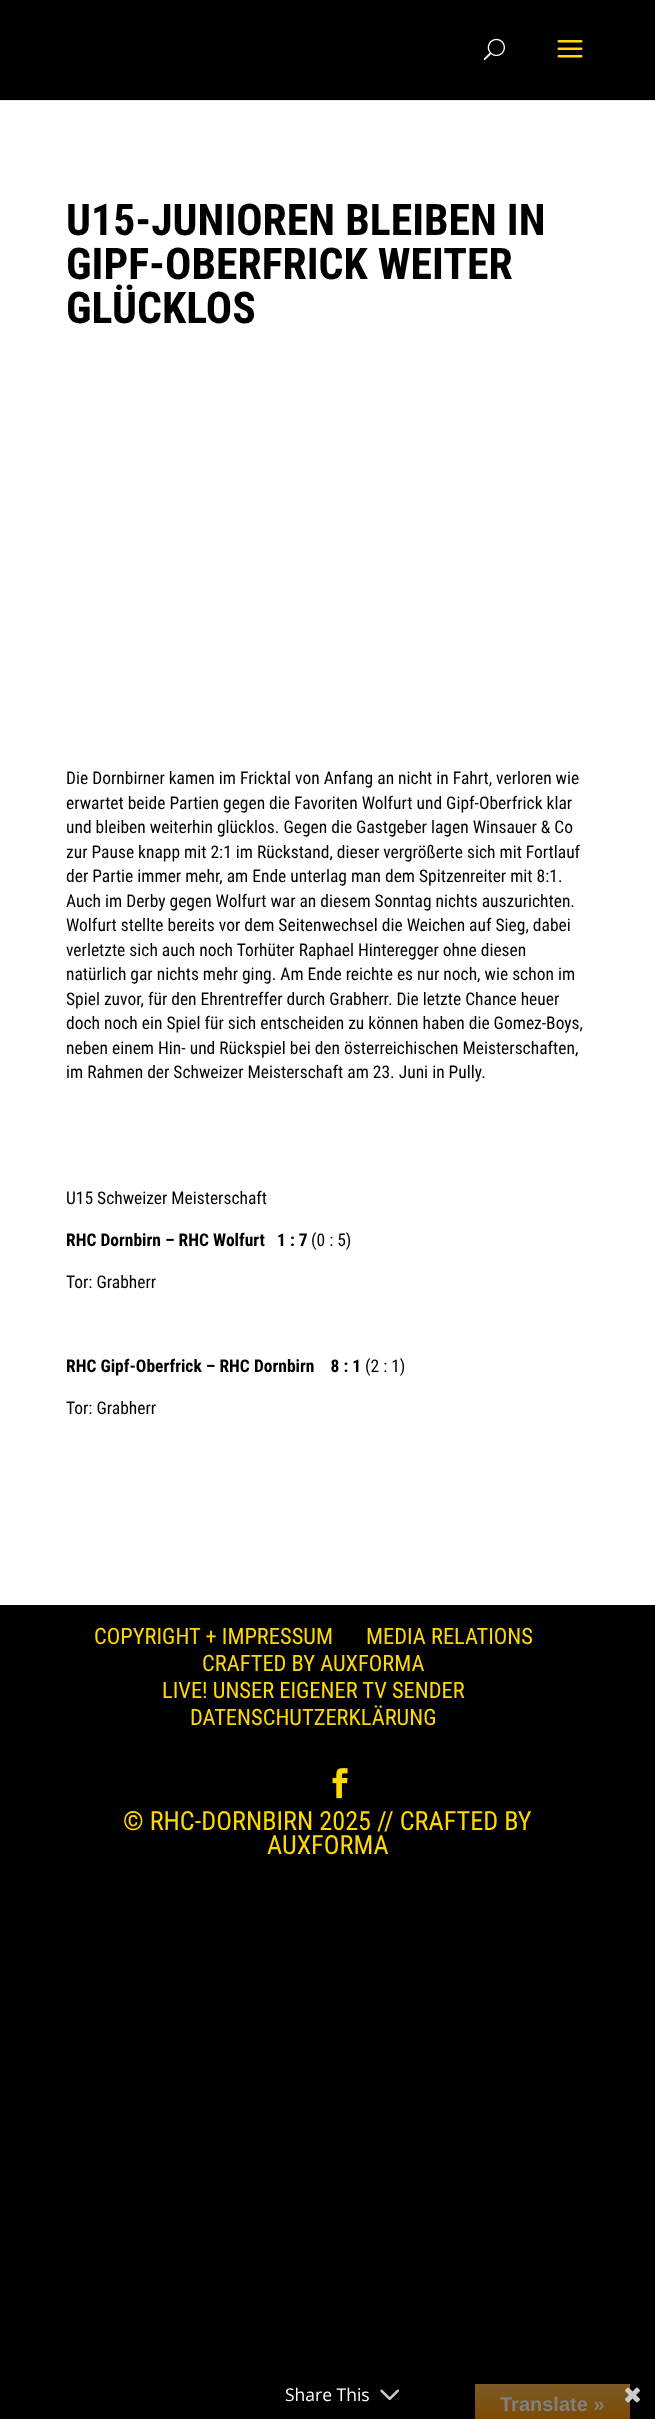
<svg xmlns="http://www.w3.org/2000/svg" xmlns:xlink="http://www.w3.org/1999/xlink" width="655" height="2419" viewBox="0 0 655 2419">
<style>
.cls-1{font:bold 43.75px Roboto Condensed;fill:#000000}
.cls-2{font:17.5px Roboto Condensed;fill:#000000}
.cls-3{font:bold 17.5px Roboto Condensed;fill:#000000}
.cls-4{font:22.5px Roboto Condensed;fill:#fed900}
.cls-5{font:26.25px Roboto Condensed;fill:#fed900}
.cls-6{font:17.5px Open Sans;fill:#ffffff}
.cls-7{font:bold 20px Liberation Sans;fill:#808080}
</style>
<defs>
<linearGradient id="g1" gradientUnits="userSpaceOnUse" x1="553" y1="2384" x2="553" y2="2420"><stop offset="0" stop-color="#7e5a28"/><stop offset="1" stop-color="#7c4a03"/></linearGradient>
</defs>
<rect width="100%" height="100%" fill="#000000"/>
<rect fill="#e6e6e6" x="0" y="100" width="655" height="1"/>
<image xlink:href="image0.png" x="483" y="38" width="22" height="23"/>
<image xlink:href="image1.png" x="557" y="40" width="26" height="18"/>
<rect fill="#ffffff" x="0" y="101" width="655" height="1504"/>
<image xlink:href="image2.png" x="332" y="1768" width="16" height="31"/>
<image xlink:href="image3.png" x="380" y="2389" width="19" height="12"/>
<rect fill="url(#g1)" x="475" y="2384" width="155" height="35"/>
<image xlink:href="image4.png" x="625" y="2387" width="15" height="16"/>
<text class="cls-1"><tspan x="66" y="235">U15-JUNIOREN BLEIBEN IN</tspan><tspan x="66" y="279">GIPF-OBERFRICK WEITER</tspan><tspan x="66" y="323">GLÜCKLOS</tspan></text>
<text class="cls-2"><tspan x="66" y="784">Die Dornbirner kamen im Fricktal von Anfang an nicht in Fahrt, verloren wie</tspan><tspan x="66" y="809">erwartet beide Partien gegen die Favoriten Wolfurt und Gipf-Oberfrick klar</tspan><tspan x="66" y="833">und bleiben weiterhin glücklos. Gegen die Gastgeber lagen Winsauer &amp; Co</tspan><tspan x="66" y="858">zur Pause knapp mit 2:1 im Rückstand, dieser vergrößerte sich mit Fortlauf</tspan><tspan x="66" y="882">der Partie immer mehr, am Ende unterlag man dem Spitzenreiter mit 8:1.</tspan><tspan x="66" y="907">Auch im Derby gegen Wolfurt war an diesem Sonntag nichts auszurichten.</tspan><tspan x="66" y="931">Wolfurt stellte bereits vor dem Seitenwechsel die Weichen auf Sieg, dabei</tspan><tspan x="66" y="956">verletzte sich auch noch Torhüter Raphael Hinteregger ohne diesen</tspan><tspan x="66" y="980">natürlich gar nichts mehr ging. Am Ende reichte es nur noch, wie schon im</tspan><tspan x="66" y="1005">Spiel zuvor, für den Ehrentreffer durch Grabherr. Die letzte Chance heuer</tspan><tspan x="66" y="1029">doch noch ein Spiel für sich entscheiden zu können haben die Gomez-Boys,</tspan><tspan x="66" y="1054">neben einem Hin- und Rückspiel bei den österreichischen Meisterschaften,</tspan><tspan x="66" y="1078">im Rahmen der Schweizer Meisterschaft am 23. Juni in Pully.</tspan></text>
<text class="cls-2" x="66" y="1204">U15 Schweizer Meisterschaft</text>
<text class="cls-3" xml:space="preserve" x="66" y="1246">RHC Dornbirn – RHC Wolfurt   1 : 7</text>
<text class="cls-2" x="311" y="1246">(0 : 5)</text>
<text class="cls-2" x="66" y="1288">Tor: Grabherr</text>
<text class="cls-3" xml:space="preserve" x="66" y="1372">RHC Gipf-Oberfrick – RHC Dornbirn    8 : 1</text>
<text class="cls-2" x="365" y="1372">(2 : 1)</text>
<text class="cls-2" x="66" y="1414">Tor: Grabherr</text>
<text class="cls-4" x="94" y="1644">COPYRIGHT + IMPRESSUM</text>
<text class="cls-4" x="366" y="1644">MEDIA RELATIONS</text>
<text class="cls-4" x="202" y="1671">CRAFTED BY AUXFORMA</text>
<text class="cls-4" x="162" y="1698">LIVE! UNSER EIGENER TV SENDER</text>
<text class="cls-4" x="190" y="1725">DATENSCHUTZERKLÄRUNG</text>
<text class="cls-5" x="123" y="1830">© RHC-DORNBIRN 2025 // CRAFTED BY</text>
<text class="cls-5" x="267" y="1854">AUXFORMA</text>
<text class="cls-6" x="285" y="2401">Share This</text>
<text class="cls-7" x="500" y="2411">Translate »</text>
</svg>
